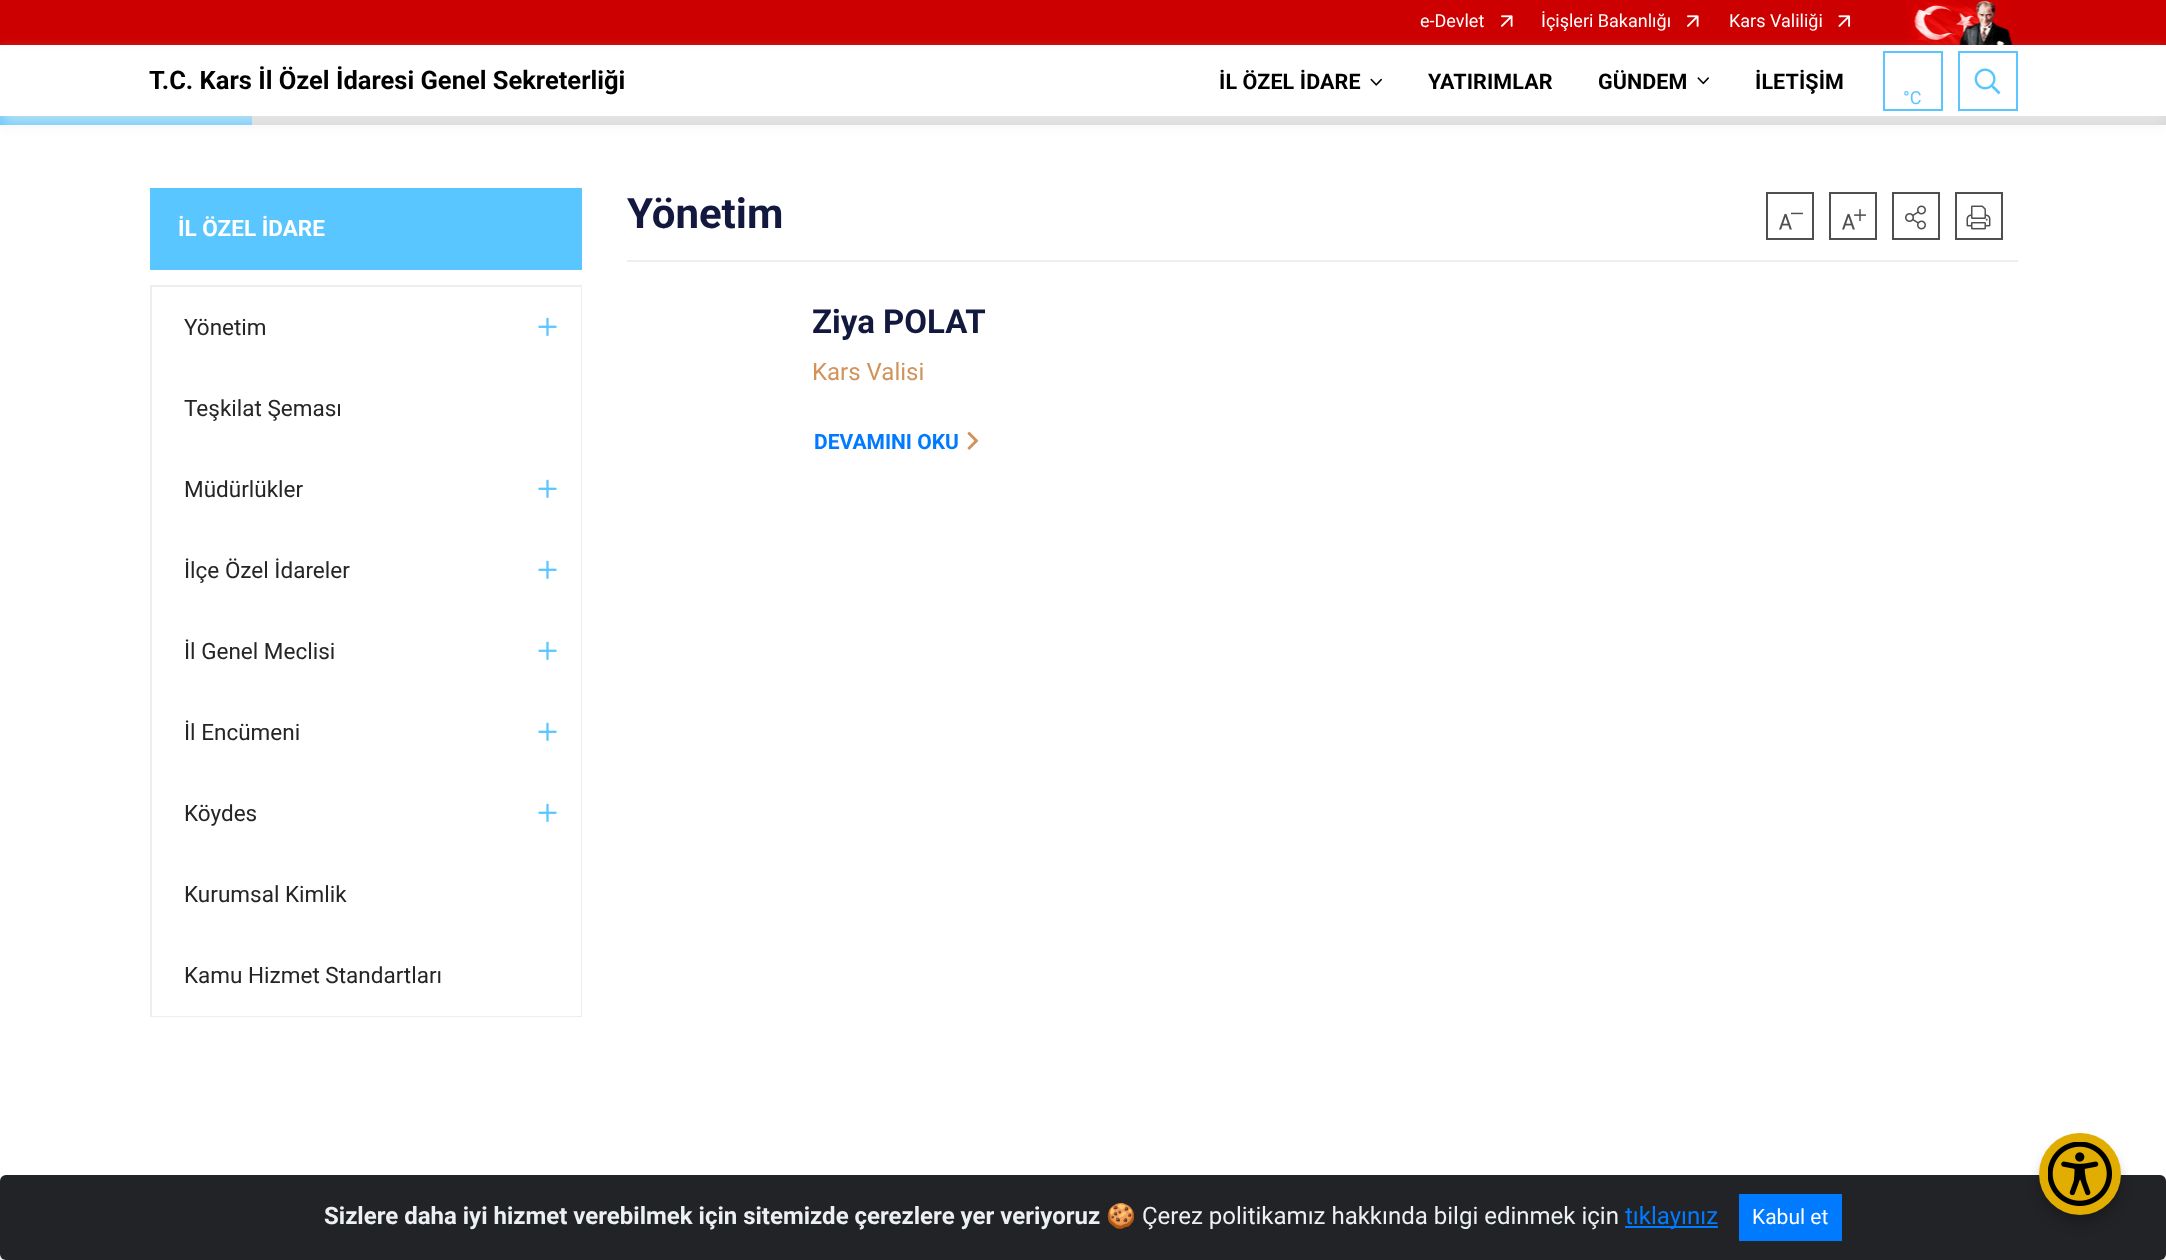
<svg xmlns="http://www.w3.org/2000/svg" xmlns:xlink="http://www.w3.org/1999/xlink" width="2166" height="1260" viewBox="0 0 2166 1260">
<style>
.cls-1{font:18px Roboto;fill:#ffffff}
.cls-2{font:bold 25.5px Roboto;fill:#000000}
.cls-3{font:bold 21.5px Roboto;letter-spacing:0.1px;fill:#000000}
.cls-4{font:18px Roboto;fill:#59c6ff}
.cls-5{font:bold 22.5px Roboto;fill:#ffffff}
.cls-6{font:22.5px Roboto;fill:#252525}
.cls-7{font:bold 42px Roboto;fill:#13183e}
.cls-8{font:bold 33px Roboto;fill:#13183e}
.cls-9{font:24px Roboto;fill:#d2935b}
.cls-10{font:bold 21px Roboto;fill:#007bff}
.cls-11{font:bold 24px Roboto;fill:#ecf0f1}
.cls-12{font:24px Noto Color Emoji;fill:#ecf0f1}
.cls-13{font:24px Roboto;fill:#ecf0f1}
.cls-14{font:24px Roboto;fill:#007bff}
.cls-15{font:21px Roboto;fill:#ffffff}
</style>
<rect width="100%" height="100%" fill="#ffffff"/>
<rect fill="#cc0000" x="0" y="0" width="2166" height="45"/>
<image xlink:href="image0.png" x="1501" y="15" width="12" height="12"/>
<image xlink:href="image0.png" x="1687" y="15" width="12" height="12"/>
<image xlink:href="image1.png" x="1838" y="15" width="13" height="12"/>
<image xlink:href="image2.png" x="1906" y="0" width="107" height="45"/>
<rect fill="#d7d7d7" x="252" y="116" width="1914" height="9"/>
<rect fill="#59c6ff" x="0" y="116" width="252" height="9"/>
<rect fill="#eeeeee" fill-opacity="0.62" filter="blur(7.5px)" x="0" y="54" width="2166" height="71"/>
<rect fill="#ffffff" x="0" y="49" width="2166" height="67"/>
<image xlink:href="image3.png" x="1370" y="78" width="12" height="8"/>
<image xlink:href="image4.png" x="1697" y="77" width="12" height="8"/>
<rect fill="none" stroke="#59c6ff" stroke-width="2" x="1884" y="52" width="58" height="58"/>
<rect fill="none" stroke="#59c6ff" stroke-width="2" x="1959" y="52" width="58" height="58"/>
<image xlink:href="image5.png" x="1974" y="68" width="27" height="27"/>
<rect fill="#59c6ff" x="150" y="188" width="432" height="82"/>
<rect fill="none" stroke="#eeeeee" stroke-width="2" x="151" y="286" width="430" height="730"/>
<rect fill="#ffffff" x="580" y="287" width="1" height="648"/>
<image xlink:href="image6.png" x="538" y="317" width="19" height="19"/>
<image xlink:href="image6.png" x="538" y="479" width="19" height="19"/>
<image xlink:href="image6.png" x="538" y="560" width="19" height="19"/>
<image xlink:href="image6.png" x="538" y="641" width="19" height="19"/>
<image xlink:href="image6.png" x="538" y="722" width="19" height="19"/>
<image xlink:href="image6.png" x="538" y="803" width="19" height="19"/>
<rect fill="#ffffff" x="152" y="935" width="429" height="81"/>
<rect fill="#eeeeee" x="627" y="260" width="1391" height="2"/>
<rect fill="none" stroke="#4f4f4f" stroke-width="2" x="1767" y="193" width="46" height="46"/>
<image xlink:href="image7.png" x="1779" y="212" width="24" height="18"/>
<rect fill="none" stroke="#4f4f4f" stroke-width="2" x="1830" y="193" width="46" height="46"/>
<image xlink:href="image8.png" x="1842" y="209" width="24" height="21"/>
<rect fill="none" stroke="#4f4f4f" stroke-width="2" x="1893" y="193" width="46" height="46"/>
<image xlink:href="image9.png" x="1905" y="205" width="21" height="25"/>
<rect fill="none" stroke="#4f4f4f" stroke-width="2" x="1956" y="193" width="46" height="46"/>
<image xlink:href="image10.png" x="1966" y="205" width="25" height="25"/>
<image xlink:href="image11.png" x="967" y="431" width="12" height="19"/>
<rect fill="#eeeeee" x="0" y="1254" width="2166" height="6"/>
<rect fill="#212327" x="0" y="1175" width="2166" height="85" rx="6"/>
<rect fill="#007bff" x="1625" y="1226" width="93" height="2"/>
<rect fill="#007bff" x="1739" y="1194" width="103" height="47"/>
<rect fill="#000000" fill-opacity="0.2" filter="blur(6px)" x="2039" y="1142" width="82" height="82" rx="41"/>
<circle fill="#e1ad01" cx="2080" cy="1174" r="41"/>
<image xlink:href="image12.png" x="2048" y="1142" width="64" height="64"/>
<text class="cls-1" x="1420" y="27">e-Devlet</text>
<text class="cls-1" x="1541" y="27">İçişleri Bakanlığı</text>
<text class="cls-1" x="1729" y="27">Kars Valiliği</text>
<text class="cls-2" x="149" y="89">T.C. Kars İl Özel İdaresi Genel Sekreterliği</text>
<text class="cls-3" x="1219" y="89">İL ÖZEL İDARE</text>
<text class="cls-3" x="1428" y="89">YATIRIMLAR</text>
<text class="cls-3" x="1598" y="89">GÜNDEM</text>
<text class="cls-3" x="1755" y="89">İLETİŞİM</text>
<text class="cls-4" x="1903" y="104">°C</text>
<text class="cls-5" x="178" y="236">İL ÖZEL İDARE</text>
<text class="cls-6" x="184" y="335">Yönetim</text>
<text class="cls-6" x="184" y="416">Teşkilat Şeması</text>
<text class="cls-6" x="184" y="497">Müdürlükler</text>
<text class="cls-6" x="184" y="578">İlçe Özel İdareler</text>
<text class="cls-6" x="184" y="659">İl Genel Meclisi</text>
<text class="cls-6" x="184" y="740">İl Encümeni</text>
<text class="cls-6" x="184" y="821">Köydes</text>
<text class="cls-6" x="184" y="902">Kurumsal Kimlik</text>
<text class="cls-6" x="184" y="983">Kamu Hizmet Standartları</text>
<text class="cls-7" x="627" y="228">Yönetim</text>
<text class="cls-8" x="812" y="333">Ziya POLAT</text>
<text class="cls-9" x="812" y="380">Kars Valisi</text>
<text class="cls-10" x="814" y="449">DEVAMINI OKU</text>
<text class="cls-11" x="324" y="1224">Sizlere daha iyi hizmet verebilmek için sitemizde çerezlere yer veriyoruz</text>
<text class="cls-12" x="1106" y="1224">🍪</text>
<text class="cls-13" x="1142" y="1224">Çerez politikamız hakkında bilgi edinmek için</text>
<text class="cls-14" x="1625" y="1224">tıklayınız</text>
<text class="cls-15" x="1752" y="1224">Kabul et</text>
</svg>
